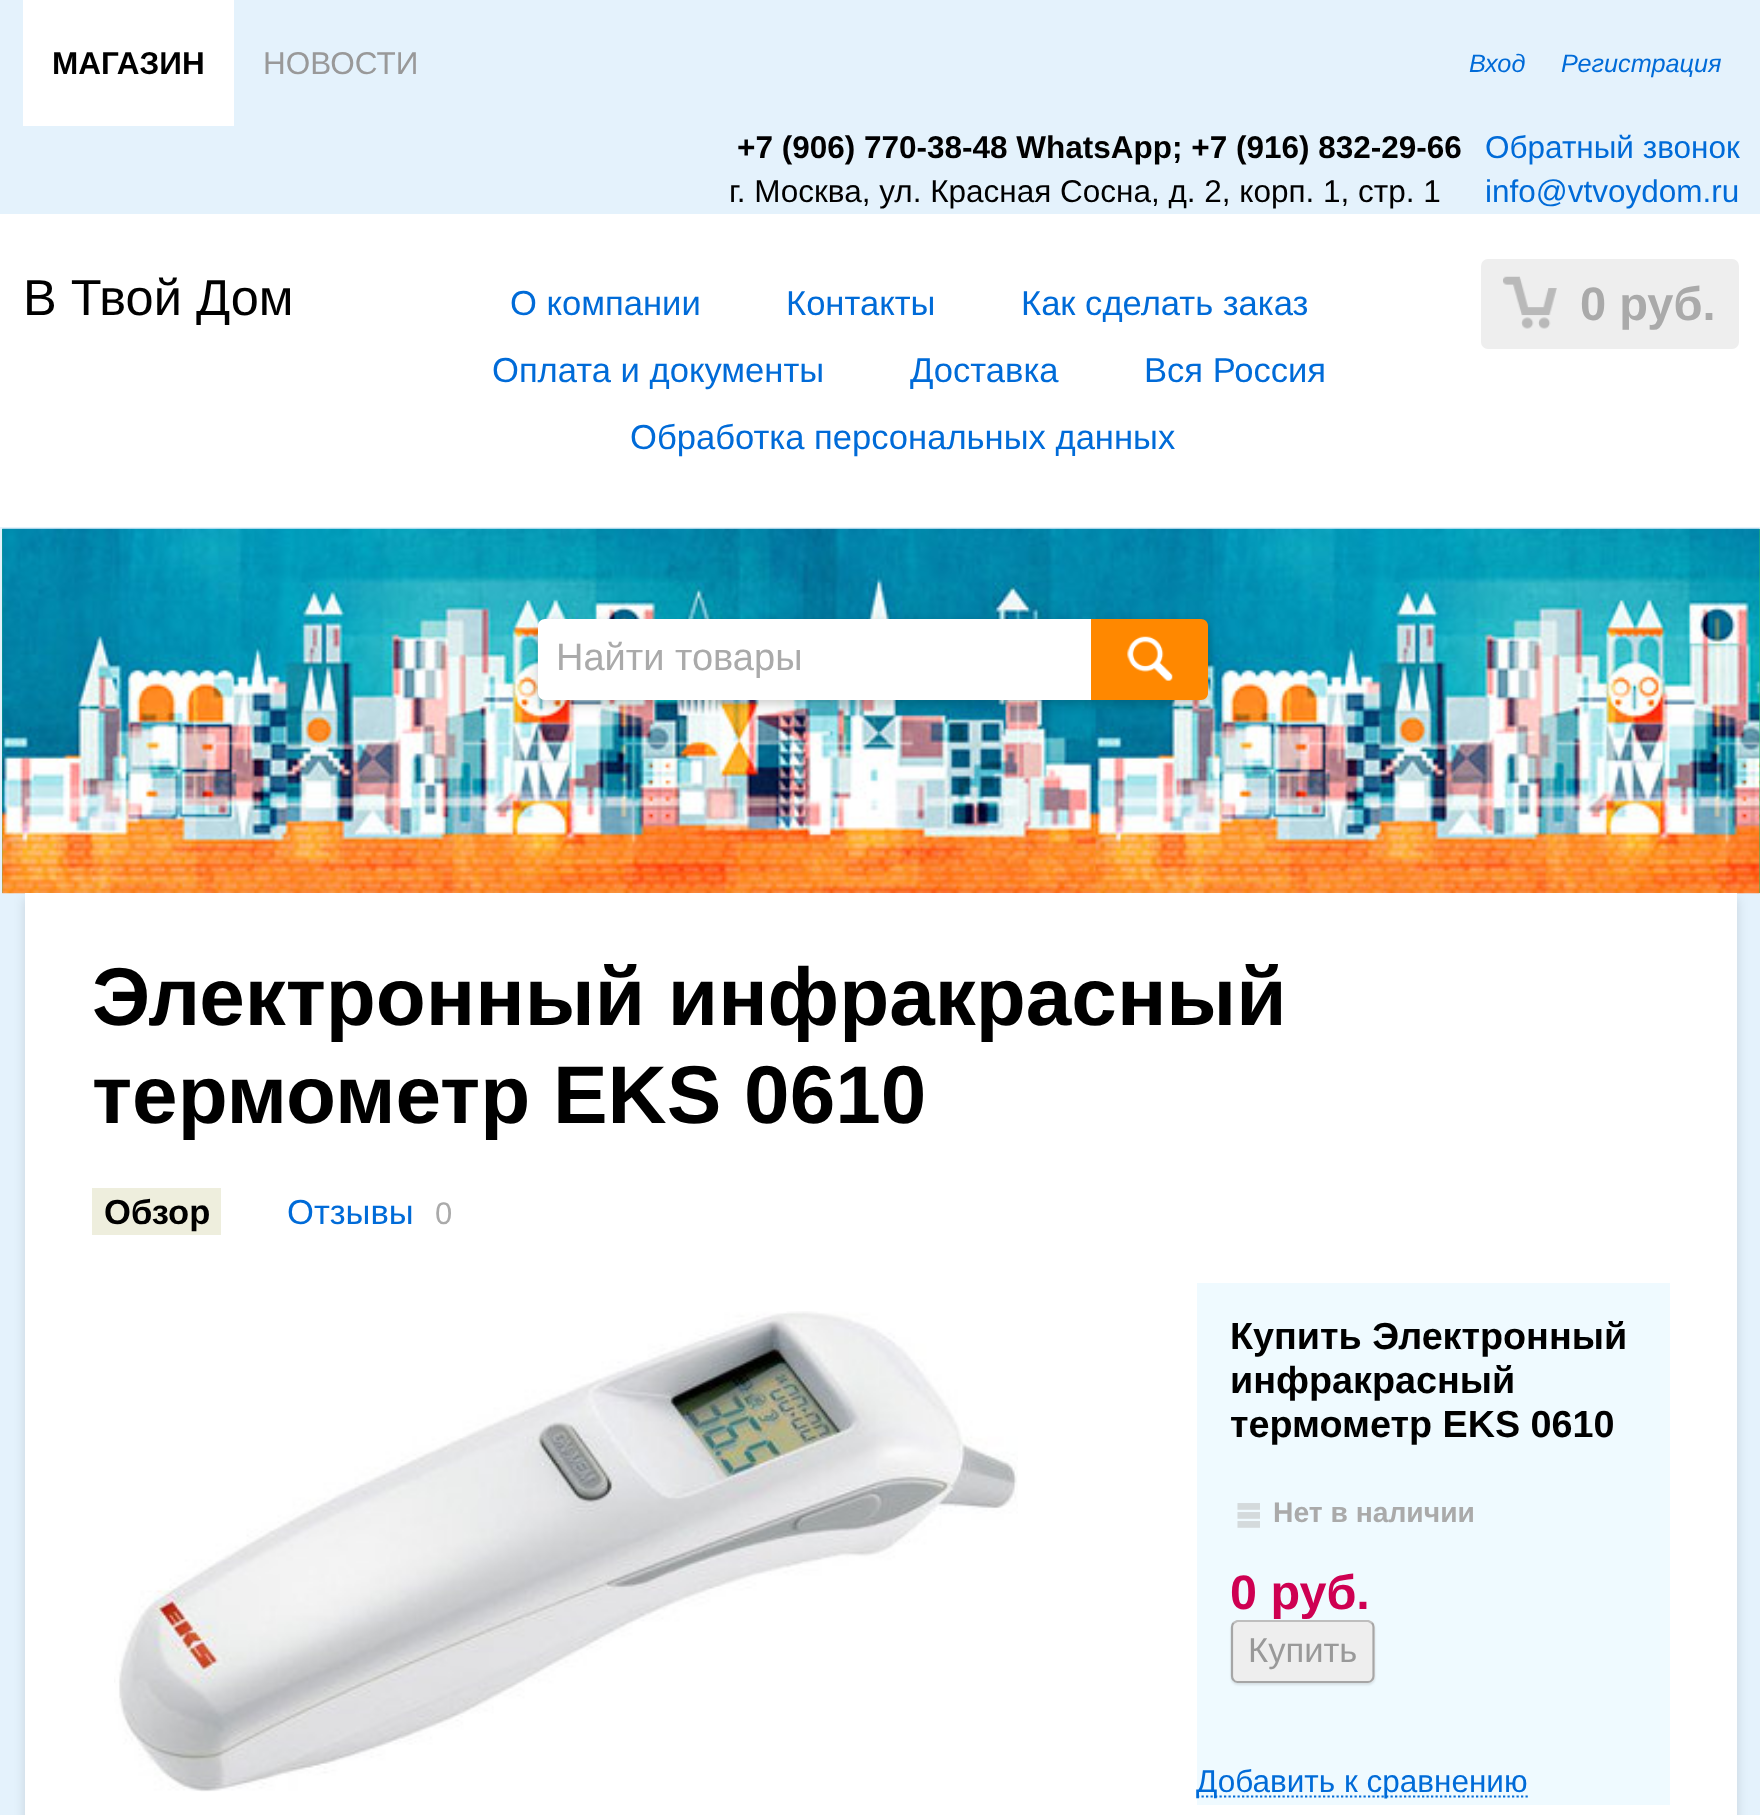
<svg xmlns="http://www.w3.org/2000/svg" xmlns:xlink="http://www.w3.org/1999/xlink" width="1760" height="1815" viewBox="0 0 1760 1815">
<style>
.cls-1{font:bold 31.5px Liberation Sans;fill:#000000}
.cls-2{font:31.5px Liberation Sans;fill:#999999}
.cls-3{font:italic 25.25px Liberation Sans;fill:#006bd8}
.cls-4{font:31.5px Liberation Sans;fill:#006bd8}
.cls-5{font:31.5px Liberation Sans;fill:#000000}
.cls-6{font:50.5px Liberation Sans;fill:#000000}
.cls-7{font:34.6px Liberation Sans;fill:#006bd8}
.cls-8{font:bold 47px Liberation Sans;fill:#aaaaaa}
.cls-9{font:38px Liberation Sans;fill:#aaaaaa}
.cls-10{font:bold 81.9px Liberation Sans;fill:#000000}
.cls-11{font:bold 34.6px Liberation Sans;fill:#000000}
.cls-12{font:31px Liberation Sans;fill:#aaaaaa}
.cls-13{font:bold 37.75px Liberation Sans;fill:#000000}
.cls-14{font:bold 28.25px Liberation Sans;fill:#aaaaaa}
.cls-15{font:bold 48.5px Liberation Sans;fill:#ce0052}
.cls-16{font:34.6px Liberation Sans;fill:#999999}
</style>
<rect width="100%" height="100%" fill="#e4f2fc"/>
<rect fill="#ffffff" x="0" y="214" width="1760" height="313"/>
<rect fill="#ffffff" x="23" y="0" width="211" height="126"/>
<rect fill="#eeeeee" x="1481" y="259" width="258" height="90" rx="7"/>
<image xlink:href="image0.png" x="1503" y="276" width="54" height="53"/>
<rect fill="#27ba64" x="2" y="529" width="1758" height="364"/>
<image xlink:href="image1.png" x="2" y="528" width="1758" height="366"/>
<rect fill="#000000" fill-opacity="0.2" filter="blur(5.5px)" x="538" y="623" width="670" height="81" rx="11"/>
<path fill="#ffffff" d="M545 619H1197C1203 619 1208 624 1208 630V689C1208 695 1203 700 1197 700H545C541 700 538 697 538 693V626C538 622 541 619 545 619Z"/>
<path fill="#ff8800" d="M1091 619H1201C1205 619 1208 622 1208 626V693C1208 697 1205 700 1201 700H1091Z"/>
<image xlink:href="image2.png" x="1127" y="636" width="46" height="45"/>
<rect fill="#000000" fill-opacity="0.13" filter="blur(5.5px)" x="25" y="898" width="1712" height="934"/>
<rect fill="#ffffff" x="25" y="893" width="1712" height="922"/>
<rect fill="#eeeedd" x="92" y="1188" width="129" height="47"/>
<rect fill="#effaff" x="1197" y="1283" width="473" height="522"/>
<image xlink:href="image3.png" x="1237" y="1503" width="23" height="25"/>
<rect fill="#000000" fill-opacity="0.1" filter="blur(1px)" x="1231" y="1622" width="144" height="63" rx="7"/>
<rect fill="#eeeeee" x="1231" y="1620" width="144" height="63" rx="7"/>
<path fill="none" stroke="#006bd8" stroke-width="2.2" stroke-dasharray="2.25 2.25" d="M1197 1796.5H1528"/>
<image xlink:href="image4.png" x="114" y="1311" width="904" height="481"/>
<text class="cls-1" x="52" y="74">МАГАЗИН</text>
<text class="cls-2" x="263" y="74">НОВОСТИ</text>
<text class="cls-3" x="1469" y="72">Вход</text>
<text class="cls-3" x="1561" y="72">Регистрация</text>
<text class="cls-1" x="737" y="158">+7 (906) 770-38-48 WhatsApp; +7 (916) 832-29-66</text>
<text class="cls-4" x="1485" y="158">Обратный звонок</text>
<text class="cls-5" x="729" y="202">г. Москва, ул. Красная Сосна, д. 2, корп. 1, стр. 1</text>
<text class="cls-4" x="1485" y="202">info@vtvoydom.ru</text>
<text class="cls-6" x="23" y="315">В Твой Дом</text>
<text class="cls-7" x="510" y="315">О компании</text>
<text class="cls-7" x="786" y="315">Контакты</text>
<text class="cls-7" x="1021" y="315">Как сделать заказ</text>
<text class="cls-7" x="492" y="382">Оплата и документы</text>
<text class="cls-7" x="910" y="382">Доставка</text>
<text class="cls-7" x="1144" y="382">Вся Россия</text>
<text class="cls-7" x="630" y="449">Обработка персональных данных</text>
<text class="cls-8" x="1580" y="320">0 руб.</text>
<text class="cls-9" x="556" y="670">Найти товары</text>
<text class="cls-10"><tspan x="92" y="1025">Электронный инфракрасный</tspan><tspan x="92" y="1123">термометр EKS 0610</tspan></text>
<text class="cls-11" x="104" y="1224">Обзор</text>
<text class="cls-7" x="287" y="1224">Отзывы</text>
<text class="cls-12" x="435" y="1224">0</text>
<text class="cls-13"><tspan x="1230" y="1349">Купить Электронный</tspan><tspan x="1230" y="1393">инфракрасный</tspan><tspan x="1230" y="1437">термометр EKS 0610</tspan></text>
<text class="cls-14" x="1273" y="1522">Нет в наличии</text>
<text class="cls-15" x="1230" y="1609">0 руб.</text>
<path fill="none" stroke="#000000" stroke-opacity="0.2" stroke-width="2.2" d="M1233.5 1623L1237 1621H1368.5L1372 1623"/>
<path fill="none" stroke="#000000" stroke-opacity="0.3" stroke-width="2.2" d="M1372 1623C1373 1624 1373.5 1625.5 1373.5 1627V1676C1373.5 1677.5 1373 1679 1372 1680C1371 1681.5 1369.5 1682 1368 1682H1237.5C1236 1682 1234.5 1681.5 1233.5 1680C1232.5 1679 1232 1677.5 1232 1676V1627C1232 1625.5 1232.5 1624 1233.5 1623"/>
<text class="cls-16" x="1248" y="1662">Купить</text>
<text class="cls-4" x="1196" y="1792">Добавить к сравнению</text>
</svg>
